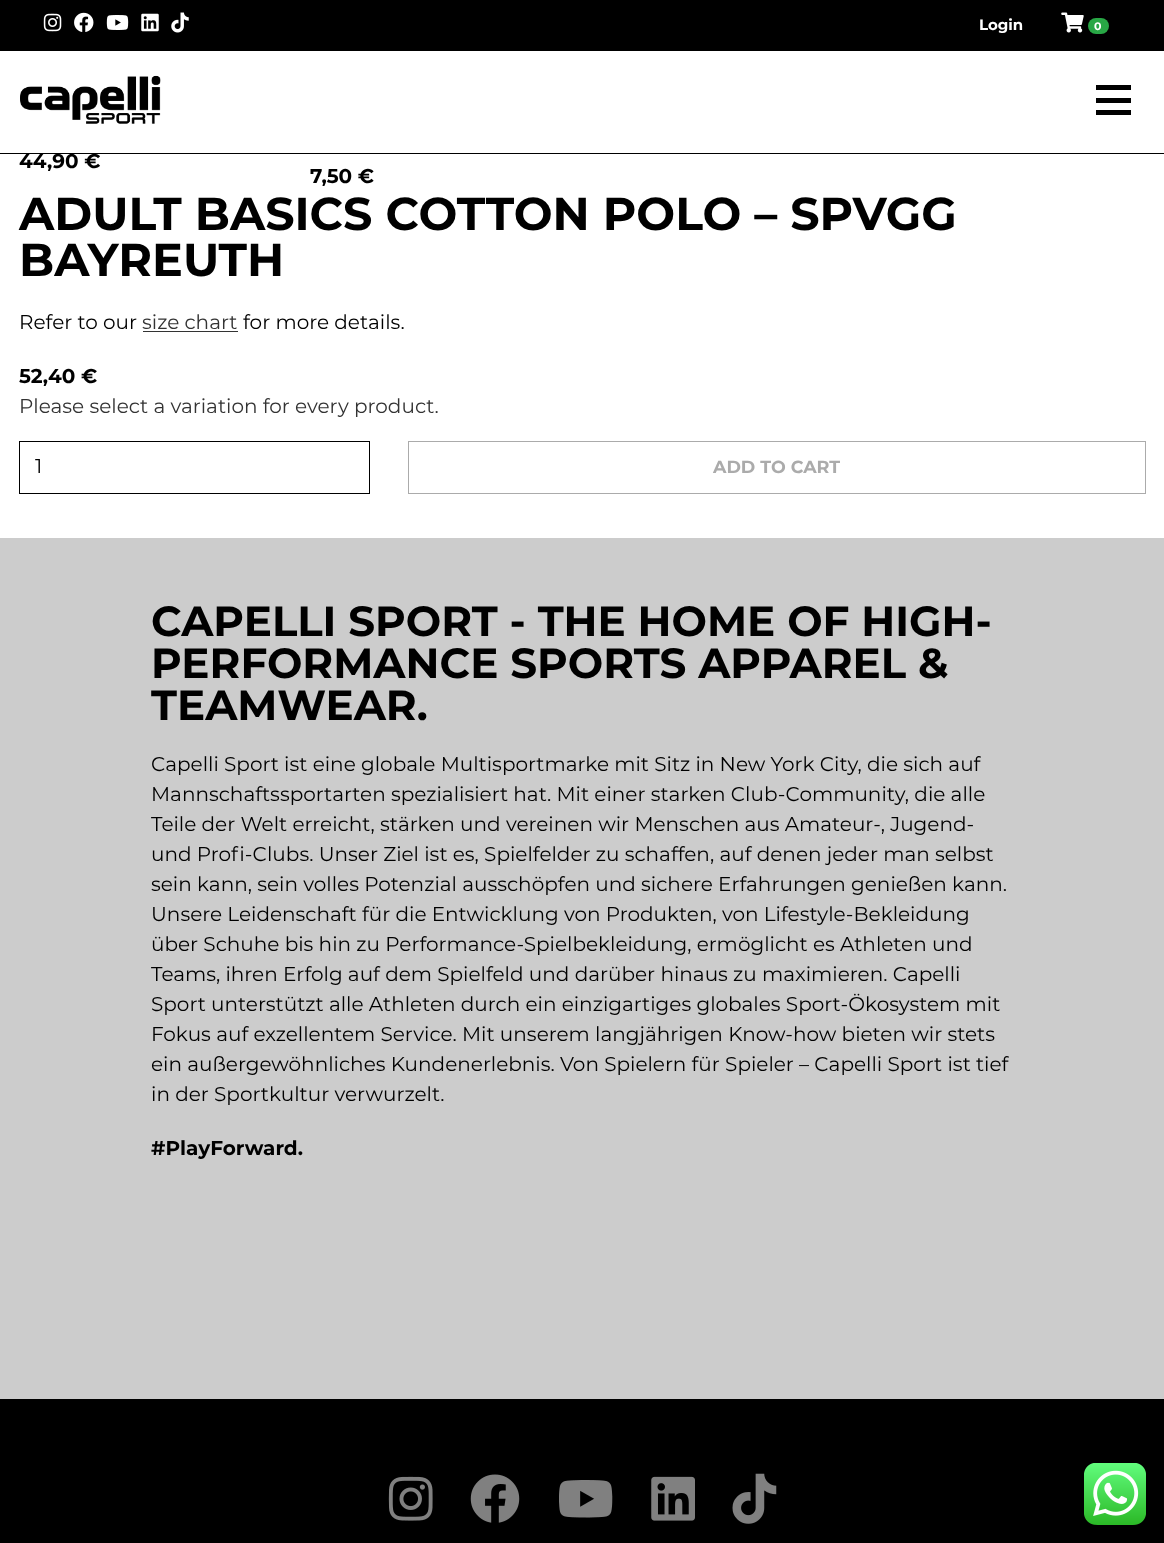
<svg xmlns="http://www.w3.org/2000/svg" xmlns:xlink="http://www.w3.org/1999/xlink" width="1164" height="1543" viewBox="0 0 1164 1543">
<style>
.cls-1{font:bold 15px Montserrat;fill:#ffffff}
.cls-2{font:bold 11px Montserrat;fill:#ffffff}
.cls-3{font:bold 20px Montserrat;fill:#000000}
.cls-4{font:bold 46px Montserrat;fill:#000000}
.cls-5{font:20px Montserrat;fill:#000000}
.cls-6{font:20px Montserrat;fill:#333333}
.cls-7{font:bold 17.5px Montserrat;fill:#ababab}
.cls-8{font:bold 42px Montserrat;fill:#000000}
</style>
<rect width="100%" height="100%" fill="#ffffff"/>
<rect fill="#000000" x="0" y="0" width="1164" height="51"/>
<image xlink:href="image0.png" x="43" y="13" width="19" height="19"/>
<image xlink:href="image1.png" x="74" y="12" width="20" height="20"/>
<image xlink:href="image2.png" x="106" y="15" width="23" height="15"/>
<image xlink:href="image3.png" x="141" y="13" width="18" height="19"/>
<image xlink:href="image4.png" x="171" y="12" width="18" height="21"/>
<image xlink:href="image5.png" x="1061" y="12" width="23" height="21"/>
<rect fill="#28a745" x="1088" y="18" width="21" height="16" rx="8"/>
<rect fill="#000000" x="0" y="153" width="1164" height="1"/>
<image xlink:href="image6.png" x="20" y="75" width="141" height="49"/>
<rect fill="#000000" x="1096" y="85" width="35" height="5"/>
<rect fill="#000000" x="1096" y="98" width="35" height="5"/>
<rect fill="#000000" x="1096" y="110" width="35" height="5"/>
<rect fill="#333333" x="143" y="331" width="95" height="1"/>
<rect fill="none" stroke="#000000" x="19.5" y="441.5" width="350" height="52"/>
<rect fill="none" stroke="#ababab" x="408.5" y="441.5" width="737" height="52"/>
<rect fill="#cccccc" x="0" y="538" width="1164" height="861"/>
<rect fill="#000000" x="0" y="1399" width="1164" height="144"/>
<image xlink:href="image7.png" x="388" y="1476" width="45" height="45"/>
<image xlink:href="image8.png" x="470" y="1474" width="50" height="49"/>
<image xlink:href="image9.png" x="559" y="1480" width="54" height="38"/>
<image xlink:href="image10.png" x="651" y="1476" width="44" height="45"/>
<image xlink:href="image11.png" x="732" y="1473" width="45" height="51"/>
<image xlink:href="image12.png" x="1084" y="1463" width="62" height="62"/>
<text class="cls-1" x="979" y="30">Login</text>
<text class="cls-2" x="1094" y="30">0</text>
<text class="cls-3" x="19" y="168">44,90 €</text>
<text class="cls-3" x="310" y="183">7,50 €</text>
<text class="cls-4"><tspan x="19" y="230">ADULT BASICS COTTON POLO – SPVGG</tspan><tspan x="19" y="276">BAYREUTH</tspan></text>
<text class="cls-5" x="19" y="329">Refer to our</text>
<text class="cls-6" x="142" y="329">size chart</text>
<text class="cls-5" x="243" y="329">for more details.</text>
<text class="cls-3" x="19" y="383">52,40 €</text>
<text class="cls-6" x="19" y="413">Please select a variation for every product.</text>
<text class="cls-5" x="35" y="473">1</text>
<text class="cls-7" x="713" y="473">ADD TO CART</text>
<text class="cls-8"><tspan x="151" y="636">CAPELLI SPORT - THE HOME OF HIGH-</tspan><tspan x="151" y="678">PERFORMANCE SPORTS APPAREL &amp;</tspan><tspan x="151" y="720">TEAMWEAR.</tspan></text>
<text class="cls-5"><tspan x="151" y="771">Capelli Sport ist eine globale Multisportmarke mit Sitz in New York City, die sich auf</tspan><tspan x="151" y="801">Mannschaftssportarten spezialisiert hat. Mit einer starken Club-Community, die alle</tspan><tspan x="151" y="831">Teile der Welt erreicht, stärken und vereinen wir Menschen aus Amateur-, Jugend-</tspan><tspan x="151" y="861">und Profi-Clubs. Unser Ziel ist es, Spielfelder zu schaffen, auf denen jeder man selbst</tspan><tspan x="151" y="891">sein kann, sein volles Potenzial ausschöpfen und sichere Erfahrungen genießen kann.</tspan><tspan x="151" y="921">Unsere Leidenschaft für die Entwicklung von Produkten, von Lifestyle-Bekleidung</tspan><tspan x="151" y="951">über Schuhe bis hin zu Performance-Spielbekleidung, ermöglicht es Athleten und</tspan><tspan x="151" y="981">Teams, ihren Erfolg auf dem Spielfeld und darüber hinaus zu maximieren. Capelli</tspan><tspan x="151" y="1011">Sport unterstützt alle Athleten durch ein einzigartiges globales Sport-Ökosystem mit</tspan><tspan x="151" y="1041">Fokus auf exzellentem Service. Mit unserem langjährigen Know-how bieten wir stets</tspan><tspan x="151" y="1071">ein außergewöhnliches Kundenerlebnis. Von Spielern für Spieler – Capelli Sport ist tief</tspan><tspan x="151" y="1101">in der Sportkultur verwurzelt.</tspan></text>
<text class="cls-3" x="151" y="1155">#PlayForward.</text>
</svg>
